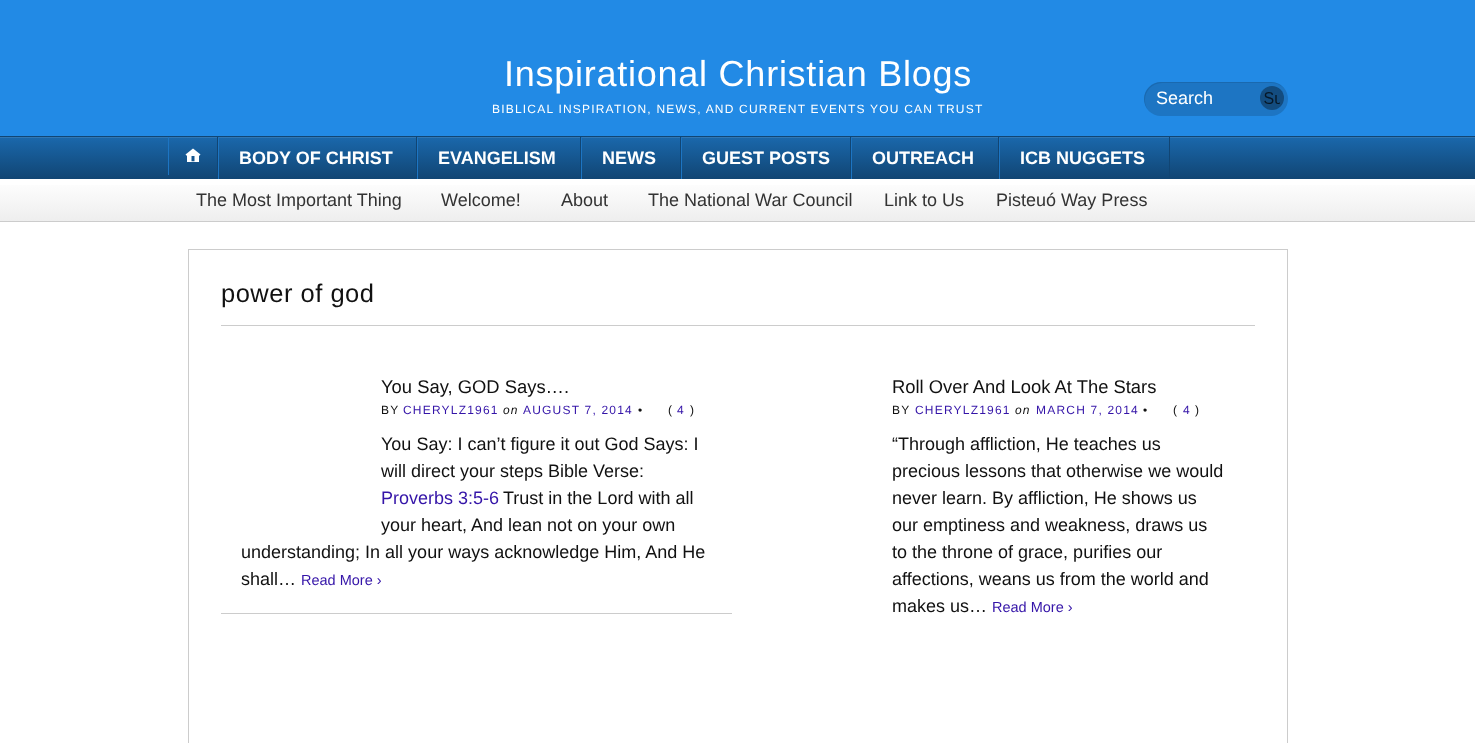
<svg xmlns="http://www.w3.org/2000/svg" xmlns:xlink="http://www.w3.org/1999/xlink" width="1475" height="743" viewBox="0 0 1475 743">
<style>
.cls-1{font:36px Liberation Sans;letter-spacing:0.75px;fill:#ffffff}
.cls-2{font:12px Liberation Sans;letter-spacing:1.2px;fill:#ffffff}
.cls-3{font:18px Liberation Sans;fill:#ffffff}
.cls-4{font:bold 18px Liberation Sans;fill:#ffffff}
.cls-5{font:18px Liberation Sans;fill:#333333}
.cls-6{font:25.5px Liberation Sans;letter-spacing:0.5px;fill:#111111}
.cls-7{font:18.4px Liberation Sans;fill:#111111}
.cls-8{font:12px Liberation Sans;letter-spacing:1.2px;fill:#111111}
.cls-9{font:12px Liberation Sans;letter-spacing:1.2px;fill:#3414a8}
.cls-10{font:italic 12px Liberation Sans;letter-spacing:1.2px;fill:#111111}
.cls-11{font:18px Liberation Sans;fill:#111111}
.cls-12{font:18px Liberation Sans;fill:#3414a8}
.cls-13{font:14.5px Liberation Sans;fill:#3414a8}
</style>
<defs>
<linearGradient id="g1" gradientUnits="userSpaceOnUse" x1="738" y1="95" x2="738" y2="137"><stop offset="0" stop-color="#1a68ac"/><stop offset="1" stop-color="#114573"/></linearGradient>
<linearGradient id="g2" gradientUnits="userSpaceOnUse" x1="738" y1="137" x2="738" y2="179"><stop offset="0" stop-color="#1a68ac"/><stop offset="1" stop-color="#114573"/></linearGradient>
<clipPath id="clip1"><rect x="0" y="137" width="1475" height="42"/></clipPath>
<linearGradient id="g3" gradientUnits="userSpaceOnUse" x1="738" y1="179" x2="738" y2="221"><stop offset="0" stop-color="#ffffff"/><stop offset="1" stop-color="#eeeeee"/></linearGradient>
</defs>
<rect width="100%" height="100%" fill="#ffffff"/>
<rect fill="#228ae5" x="0" y="0" width="1475" height="136"/>
<rect fill="#1d75c3" x="1144" y="82" width="144" height="34" rx="17"/>
<path fill="#000000" fill-opacity="0.1" d="M1162 83H1272C1277 83 1282 86 1285 89C1282 85 1277 82 1271 82H1161C1152 82 1144 90 1144 99C1144 105 1147 110 1151 113C1139 103 1146 83 1162 83Z"/>
<circle fill="#134c7f" cx="1272" cy="98" r="12"/>
<image xlink:href="image0.png" x="1264" y="92" width="16" height="12"/>
<rect fill="url(#g1)" x="0" y="136" width="1475" height="1"/>
<rect fill="url(#g2)" x="0" y="138" width="1475" height="41"/>
<g clip-path="url(#clip1)">
<path fill="#3177b3" fill-rule="evenodd" d="M-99 38H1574V278H-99ZM0 138H1475C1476 138 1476 138 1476 139V181C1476 182 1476 182 1475 182H0C-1 182-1 182-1 181V139C-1 138-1 138 0 138Z"/>
</g>
<rect fill="#114573" x="217" y="137" width="1" height="38"/>
<rect fill="#1d75c3" x="168" y="137" width="1" height="38"/>
<image xlink:href="image1.png" x="185" y="148" width="16" height="14"/>
<rect fill="#114573" x="416" y="137" width="1" height="42"/>
<rect fill="#1d75c3" x="218" y="137" width="1" height="42"/>
<rect fill="#114573" x="580" y="137" width="1" height="42"/>
<rect fill="#1d75c3" x="417" y="137" width="1" height="42"/>
<rect fill="#114573" x="680" y="137" width="1" height="42"/>
<rect fill="#1d75c3" x="581" y="137" width="1" height="42"/>
<rect fill="#114573" x="850" y="137" width="1" height="42"/>
<rect fill="#1d75c3" x="681" y="137" width="1" height="42"/>
<rect fill="#114573" x="998" y="137" width="1" height="42"/>
<rect fill="#1d75c3" x="851" y="137" width="1" height="42"/>
<rect fill="#114573" x="1169" y="137" width="1" height="42"/>
<rect fill="#1d75c3" x="999" y="137" width="1" height="42"/>
<rect fill="url(#g3)" x="0" y="185" width="1475" height="36"/>
<rect fill="#cccccc" x="0" y="221" width="1475" height="1"/>
<rect fill="none" stroke="#cccccc" x="188.5" y="249.5" width="1099" height="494"/>
<rect fill="#cccccc" x="221" y="325" width="1034" height="1"/>
<rect fill="#cccccc" x="221" y="613" width="511" height="1"/>
<text class="cls-1" x="504" y="86">Inspirational Christian Blogs</text>
<text class="cls-2" x="492" y="113">BIBLICAL INSPIRATION, NEWS, AND CURRENT EVENTS YOU CAN TRUST</text>
<text class="cls-3" x="1156" y="104">Search</text>
<text class="cls-4" x="239" y="164">BODY OF CHRIST</text>
<text class="cls-4" x="438" y="164">EVANGELISM</text>
<text class="cls-4" x="602" y="164">NEWS</text>
<text class="cls-4" x="702" y="164">GUEST POSTS</text>
<text class="cls-4" x="872" y="164">OUTREACH</text>
<text class="cls-4" x="1020" y="164">ICB NUGGETS</text>
<text class="cls-5" x="196" y="206">The Most Important Thing</text>
<text class="cls-5" x="441" y="206">Welcome!</text>
<text class="cls-5" x="561" y="206">About</text>
<text class="cls-5" x="648" y="206">The National War Council</text>
<text class="cls-5" x="884" y="206">Link to Us</text>
<text class="cls-5" x="996" y="206">Pisteuó Way Press</text>
<text class="cls-6" x="221" y="302">power of god</text>
<text class="cls-7" x="381" y="393">You Say, GOD Says….</text>
<text class="cls-8" x="381" y="414">BY</text>
<text class="cls-9" x="403" y="414">CHERYLZ1961</text>
<text class="cls-10" x="503" y="414">on</text>
<text class="cls-9" x="523" y="414">AUGUST 7, 2014</text>
<text class="cls-8" x="638" y="414">•</text>
<text class="cls-8" x="668" y="414">(</text>
<text class="cls-9" x="677" y="414">4</text>
<text class="cls-8" x="690" y="414">)</text>
<text class="cls-11"><tspan x="381" y="450">You Say: I can’t figure it out God Says: I</tspan><tspan x="381" y="477">will direct your steps Bible Verse:</tspan></text>
<text class="cls-12" x="381" y="504">Proverbs 3:5-6</text>
<text class="cls-11" x="503" y="504">Trust in the Lord with all</text>
<text class="cls-11" x="381" y="531">your heart, And lean not on your own</text>
<text class="cls-11"><tspan x="241" y="558">understanding; In all your ways acknowledge Him, And He</tspan><tspan x="241" y="585">shall…</tspan></text>
<text class="cls-13" x="301" y="585">Read More ›</text>
<text class="cls-7" x="892" y="393">Roll Over And Look At The Stars</text>
<text class="cls-8" x="892" y="414">BY</text>
<text class="cls-9" x="915" y="414">CHERYLZ1961</text>
<text class="cls-10" x="1015" y="414">on</text>
<text class="cls-9" x="1036" y="414">MARCH 7, 2014</text>
<text class="cls-8" x="1143" y="414">•</text>
<text class="cls-8" x="1173" y="414">(</text>
<text class="cls-9" x="1183" y="414">4</text>
<text class="cls-8" x="1195" y="414">)</text>
<text class="cls-11"><tspan x="892" y="450">“Through affliction, He teaches us</tspan><tspan x="892" y="477">precious lessons that otherwise we would</tspan><tspan x="892" y="504">never learn. By affliction, He shows us</tspan><tspan x="892" y="531">our emptiness and weakness, draws us</tspan><tspan x="892" y="558">to the throne of grace, purifies our</tspan><tspan x="892" y="585">affections, weans us from the world and</tspan><tspan x="892" y="612">makes us…</tspan></text>
<text class="cls-13" x="992" y="612">Read More ›</text>
</svg>
